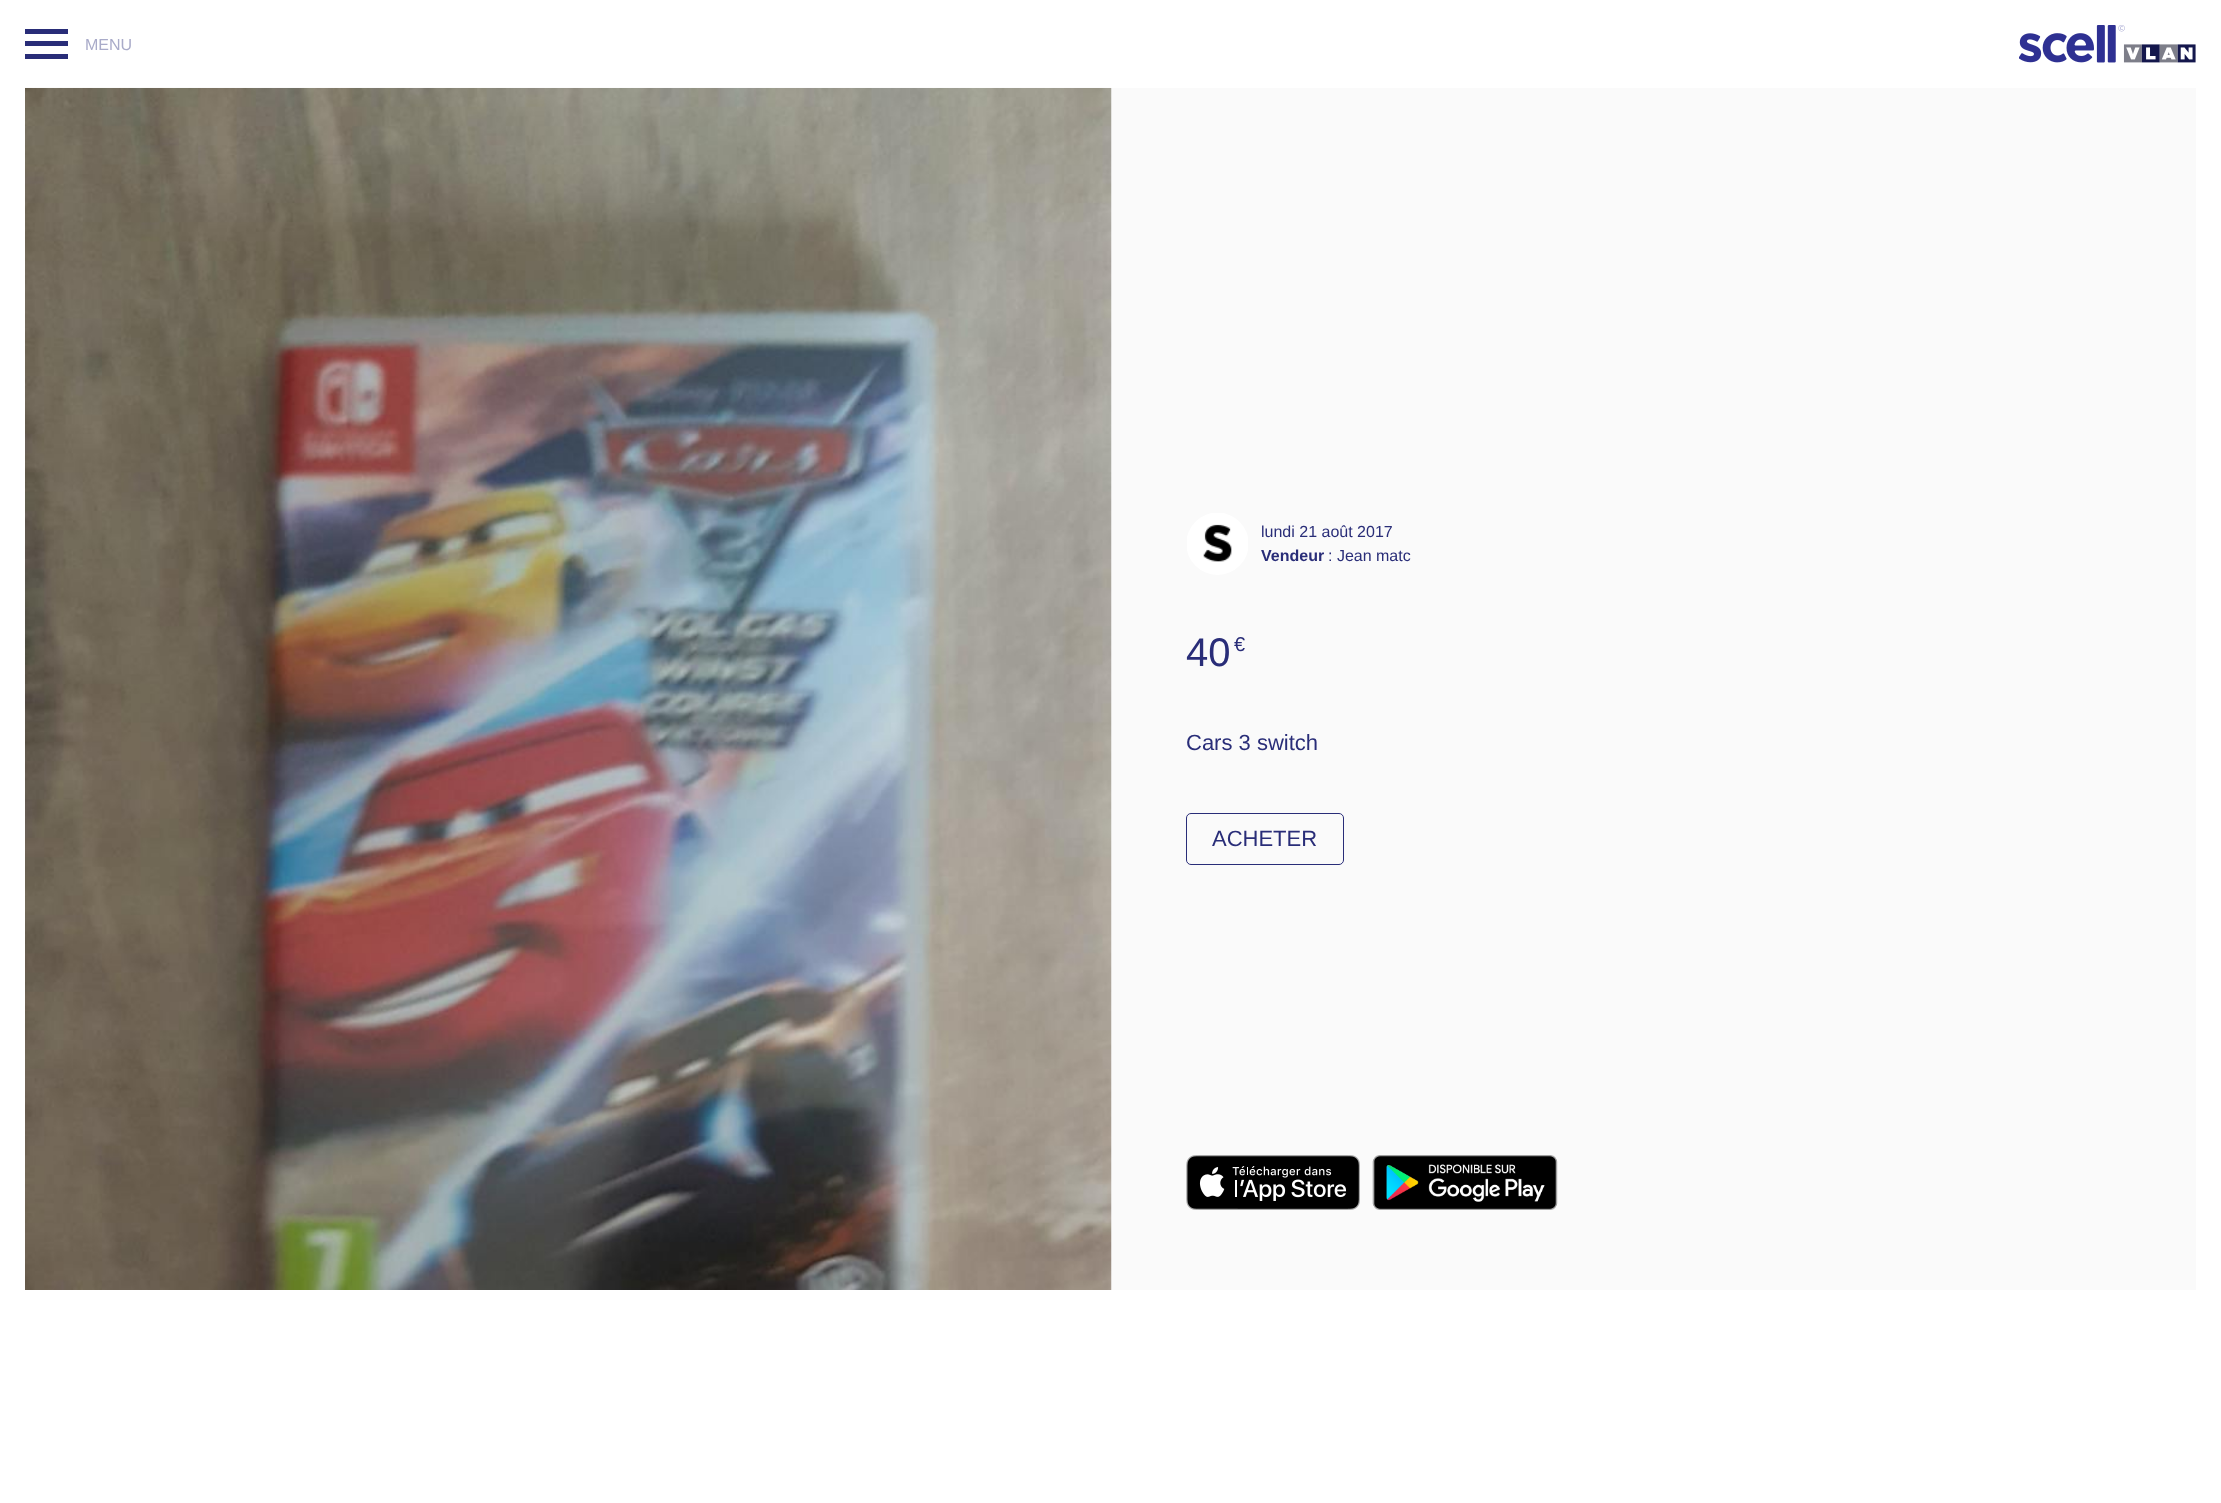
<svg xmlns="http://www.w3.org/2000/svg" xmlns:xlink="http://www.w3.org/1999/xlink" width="2221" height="1503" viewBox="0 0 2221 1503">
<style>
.cls-1{font:16px Liberation Sans;fill:#a9abc9}
.cls-2{font:16px Liberation Sans;fill:#292d78}
.cls-3{font:bold 16px Liberation Sans;fill:#292d78}
.cls-4{font:40px Liberation Sans;fill:#292d78}
.cls-5{font:20px Liberation Sans;fill:#292d78}
.cls-6{font:22px Liberation Sans;fill:#292d78}
</style>
<rect width="100%" height="100%" fill="#ffffff"/>
<rect fill="#fafafa" x="1111" y="88" width="1085" height="1202"/>
<image xlink:href="image1.png" x="25" y="87" width="1087" height="1203"/>
<rect fill="#ffffff" fill-opacity="0.94" x="25" y="87" width="1087" height="1"/>
<rect fill="#292d78" x="25" y="29" width="43" height="5"/>
<rect fill="#292d78" x="25" y="54" width="43" height="5"/>
<rect fill="#292d78" x="25" y="41" width="43" height="5"/>
<image xlink:href="image0.png" x="2019" y="25" width="177" height="38"/>
<image xlink:href="image2.png" x="1187" y="513" width="61" height="62"/>
<rect fill="none" stroke="#292d78" x="1186.5" y="813.5" width="157" height="51" rx="4.5"/>
<image xlink:href="image3.png" x="1186" y="1155" width="174" height="55"/>
<image xlink:href="image4.png" x="1372" y="1155" width="186" height="55"/>
<text class="cls-1" x="85" y="50">MENU</text>
<text class="cls-2" x="1261" y="537">lundi 21 août 2017</text>
<text class="cls-3" x="1261" y="561">Vendeur</text>
<text class="cls-2" x="1328" y="561">: Jean matc</text>
<text class="cls-4" x="1186" y="666">40</text>
<text class="cls-5" x="1234" y="651">€</text>
<text class="cls-6" x="1186" y="750">Cars 3 switch</text>
<text class="cls-6" x="1212" y="846">ACHETER</text>
</svg>
